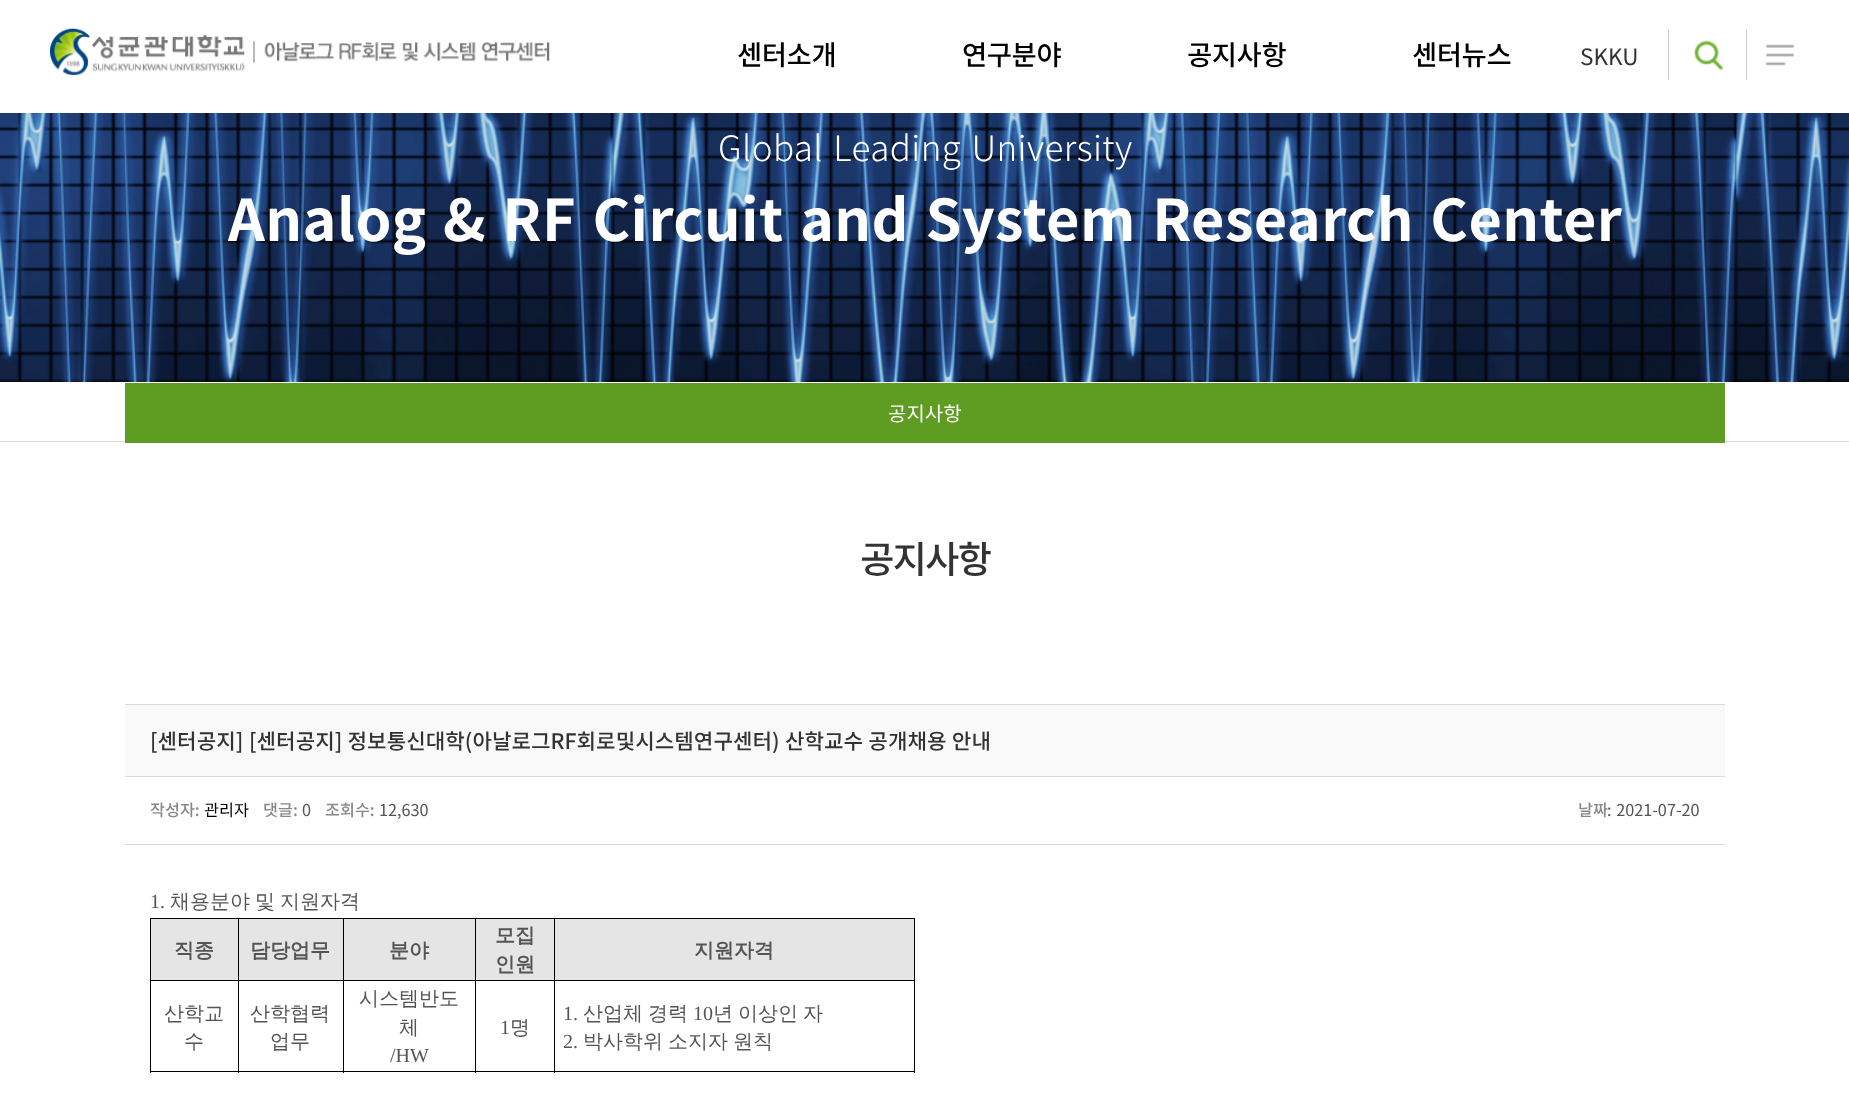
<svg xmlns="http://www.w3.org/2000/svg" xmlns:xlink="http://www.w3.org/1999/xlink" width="1849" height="1100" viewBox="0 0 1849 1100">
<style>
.cls-1{font:500 27.5px Noto Sans KR;letter-spacing:-0.5px;fill:#000000}
.cls-2{font:22.5px Noto Sans KR;fill:#333333}
.cls-3{font:300 35px Noto Sans KR;letter-spacing:0.4px;fill:#ffffff}
.cls-4{font:bold 57.5px Noto Sans KR;letter-spacing:0.4px;fill:#ffffff}
.cls-5{font:20px Noto Sans KR;fill:#ffffff}
.cls-6{font:500 37.5px Noto Sans KR;letter-spacing:-2px;fill:#333333}
.cls-7{font:500 21.25px Noto Sans KR;fill:#333333}
.cls-8{font:500 16.25px Noto Sans KR;fill:#888888}
.cls-9{font:16.25px Noto Sans KR;fill:#000000}
.cls-10{font:16.25px Noto Sans KR;fill:#555555}
.cls-11{font:20px Liberation Serif;fill:#555555}
.cls-12{font:500 20px WenQuanYi Zen Hei;fill:#555555}
.cls-13{font:bold 20px WenQuanYi Zen Hei;fill:#555555}
</style>
<rect width="100%" height="100%" fill="#ffffff"/>
<image xlink:href="image0.png" x="50" y="28" width="500" height="47"/>
<rect fill="#cccccc" x="1668" y="30" width="1" height="50"/>
<image xlink:href="image1.png" x="1694" y="40" width="29" height="31"/>
<rect fill="#cccccc" x="1746" y="30" width="1" height="50"/>
<image xlink:href="image2.png" x="1765" y="44" width="29" height="22"/>
<image xlink:href="image3.png" x="0" y="113" width="1849" height="269"/>
<rect fill="#d8d8d8" x="0" y="441" width="1849" height="1"/>
<rect fill="#5e9d22" x="1724" y="383" width="1" height="60"/>
<rect fill="#5e9d22" x="125" y="383" width="1599" height="60"/>
<rect fill="#f9f9f9" x="125" y="705" width="1600" height="71"/>
<rect fill="#dbdbdb" x="125" y="704" width="1600" height="1"/>
<rect fill="#dbdbdb" x="125" y="776" width="1600" height="1"/>
<rect fill="#dbdbdb" x="125" y="844" width="1600" height="1"/>
<rect fill="#e5e5e5" x="151" y="919" width="87" height="61"/>
<rect fill="#000000" x="554" y="918" width="361" height="1"/>
<rect fill="#000000" x="554" y="980" width="361" height="1"/>
<rect fill="#000000" x="914" y="980" width="1" height="93"/>
<rect fill="#000000" x="554" y="1071" width="361" height="1"/>
<rect fill="#000000" x="554" y="980" width="1" height="93"/>
<rect fill="#000000" x="475" y="980" width="80" height="1"/>
<rect fill="#000000" x="554" y="918" width="1" height="63"/>
<rect fill="#000000" x="475" y="918" width="80" height="1"/>
<rect fill="#000000" x="475" y="1071" width="80" height="1"/>
<rect fill="#000000" x="475" y="980" width="1" height="93"/>
<rect fill="#000000" x="343" y="980" width="133" height="1"/>
<rect fill="#000000" x="475" y="918" width="1" height="63"/>
<rect fill="#000000" x="343" y="918" width="133" height="1"/>
<rect fill="#000000" x="343" y="1071" width="133" height="1"/>
<rect fill="#000000" x="343" y="980" width="1" height="93"/>
<rect fill="#000000" x="238" y="980" width="106" height="1"/>
<rect fill="#000000" x="343" y="918" width="1" height="63"/>
<rect fill="#000000" x="238" y="918" width="106" height="1"/>
<rect fill="#000000" x="238" y="1071" width="106" height="1"/>
<rect fill="#000000" x="238" y="980" width="1" height="93"/>
<rect fill="#000000" x="150" y="980" width="89" height="1"/>
<rect fill="#000000" x="238" y="918" width="1" height="63"/>
<rect fill="#000000" x="150" y="918" width="89" height="1"/>
<rect fill="#000000" x="150" y="1071" width="89" height="1"/>
<rect fill="#000000" x="150" y="980" width="1" height="93"/>
<rect fill="#000000" x="150" y="918" width="1" height="63"/>
<rect fill="#e5e5e5" x="239" y="919" width="104" height="61"/>
<rect fill="#e5e5e5" x="344" y="919" width="131" height="61"/>
<rect fill="#e5e5e5" x="476" y="919" width="78" height="61"/>
<rect fill="#e5e5e5" x="555" y="919" width="359" height="61"/>
<rect fill="#000000" x="914" y="918" width="1" height="63"/>
<text class="cls-1" x="737" y="65">센터소개</text>
<text class="cls-1" x="962" y="65">연구분야</text>
<text class="cls-1" x="1187" y="65">공지사항</text>
<text class="cls-1" x="1412" y="65">센터뉴스</text>
<text class="cls-2" x="1580" y="65">SKKU</text>
<text class="cls-3" x="718" y="161" word-spacing="2">Global Leading University</text>
<text class="cls-4" x="228" y="241" word-spacing="3">Analog &amp; RF Circuit and System Research Center</text>
<text class="cls-5" x="888" y="421">공지사항</text>
<text class="cls-6" x="860" y="573">공지사항</text>
<text class="cls-7" x="150" y="749">[센터공지]</text>
<text class="cls-7" x="249" y="749" word-spacing="0.5">[센터공지] 정보통신대학(아날로그RF회로및시스템연구센터) 산학교수 공개채용 안내</text>
<text class="cls-8" x="150" y="816">작성자:</text>
<text class="cls-9" x="204" y="816">관리자</text>
<text class="cls-8" x="263" y="816">댓글:</text>
<text class="cls-10" x="302" y="816">0</text>
<text class="cls-8" x="325" y="816">조회수:</text>
<text class="cls-10" x="379" y="816">12,630</text>
<text class="cls-8" x="1578" y="816">날짜</text>
<text class="cls-10" x="1607" y="816" word-spacing="1">: 2021-07-20</text>
<text class="cls-11" x="150" y="908">1.</text>
<text class="cls-12" x="170" y="908" word-spacing="-1">채용분야 및 지원자격</text>
<text class="cls-13" x="174" y="957">직종</text>
<text class="cls-13" x="250" y="957">담당업무</text>
<text class="cls-13" x="389" y="957">분야</text>
<text class="cls-13"><tspan x="495" y="942">모집</tspan><tspan x="495" y="971">인원</tspan></text>
<text class="cls-13" x="694" y="957">지원자격</text>
<text class="cls-12" x="164" y="1020">산학교</text>
<text class="cls-12" x="184" y="1048">수</text>
<text class="cls-12" x="250" y="1020">산학협력</text>
<text class="cls-12" x="270" y="1048">업무</text>
<text class="cls-12" x="359" y="1005">시스템반도</text>
<text class="cls-12" x="399" y="1034">체</text>
<text class="cls-11" x="390" y="1062">/HW</text>
<text class="cls-11" x="500" y="1034">1</text>
<text class="cls-12" x="510" y="1034">명</text>
<text class="cls-11" x="563" y="1020">1.</text>
<text class="cls-12" x="583" y="1020" word-spacing="-1">산업체 경력</text>
<text class="cls-11" x="693" y="1020">10</text>
<text class="cls-12" x="713" y="1020" word-spacing="-1">년 이상인 자</text>
<text class="cls-11" x="563" y="1048">2.</text>
<text class="cls-12" x="583" y="1048" word-spacing="-1">박사학위 소지자 원칙</text>
</svg>
